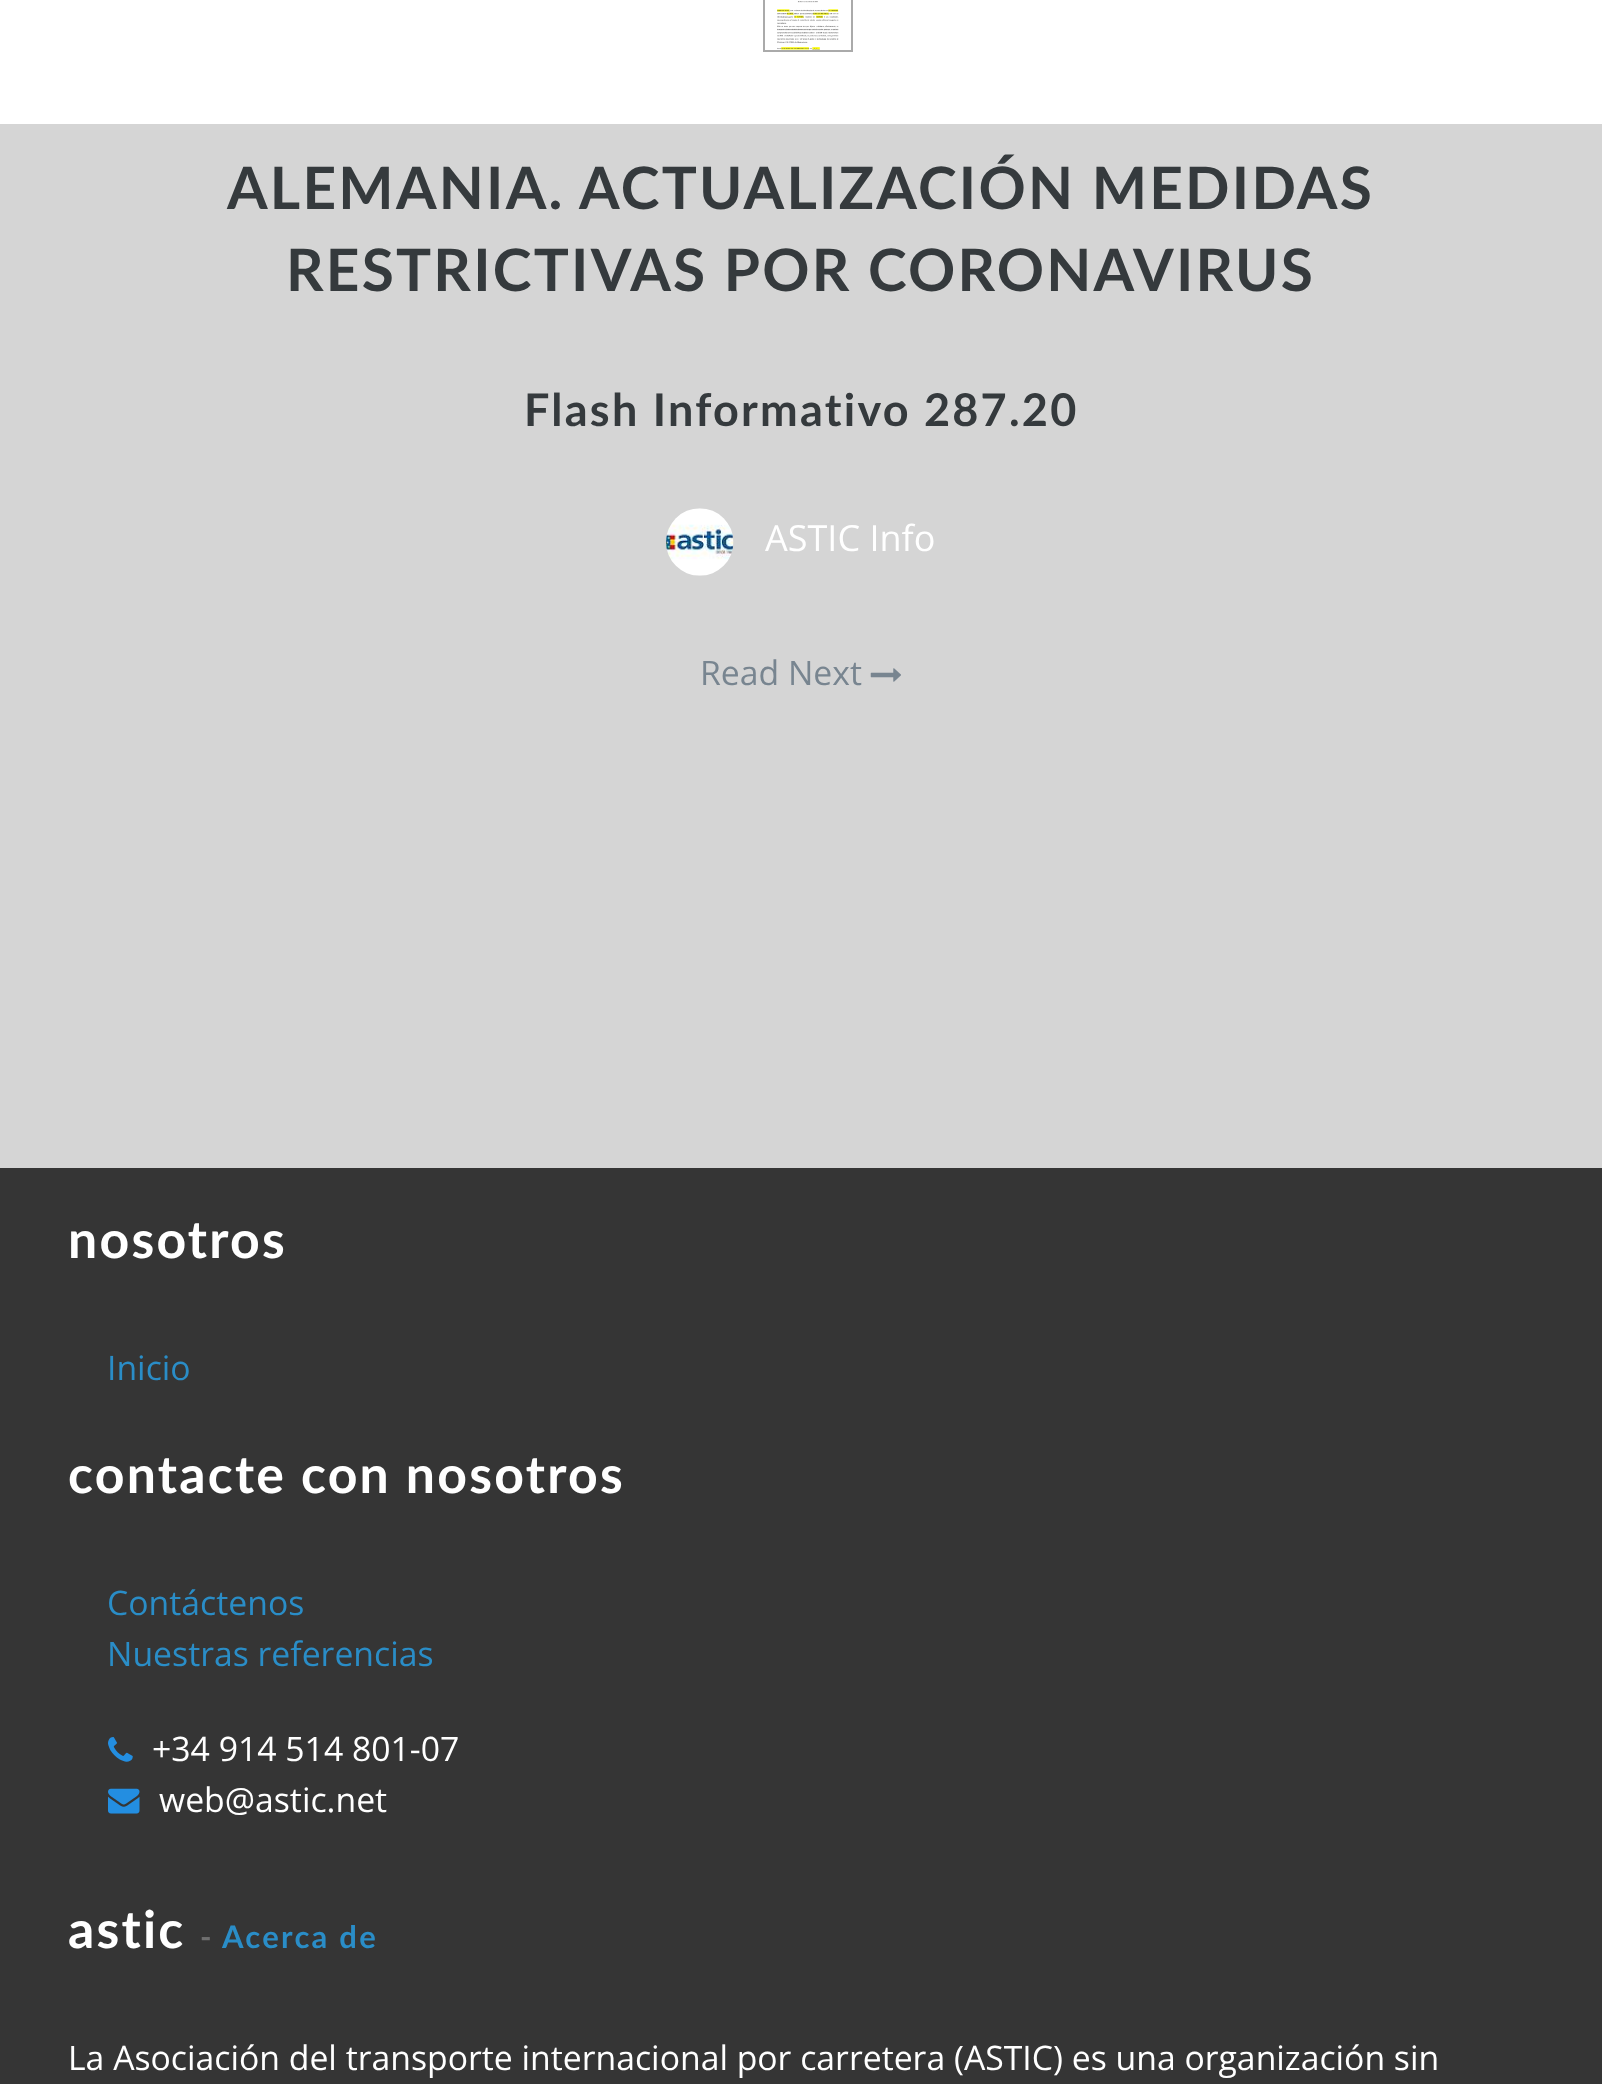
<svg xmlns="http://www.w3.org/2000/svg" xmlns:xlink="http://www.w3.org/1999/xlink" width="1602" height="2084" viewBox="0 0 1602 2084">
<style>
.cls-1{font:bold 58.5px Lato;letter-spacing:2.25px;fill:#353a3d}
.cls-2{font:bold 45px Lato;letter-spacing:2.25px;fill:#353a3d}
.cls-3{font:36px Open Sans;fill:#ffffff}
.cls-4{font:33.75px Open Sans;fill:#788590}
.cls-5{font:bold 51.75px Lato;letter-spacing:2.25px;fill:#ffffff}
.cls-6{font:33.75px Open Sans;fill:#2a8dc7}
.cls-7{font:33.75px Open Sans;fill:#ffffff}
.cls-8{font:bold 31px Lato;letter-spacing:2.25px;fill:#6f6f6f}
.cls-9{font:bold 31px Lato;letter-spacing:2.25px;fill:#2a8dc7}
</style>
<rect width="100%" height="100%" fill="#ffffff"/>
<image xlink:href="image0.png" x="777" y="1" width="62" height="49"/>
<rect fill="none" stroke="#aaaaaa" stroke-width="2" x="764" y="-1" width="88" height="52"/>
<rect fill="#d5d5d5" x="0" y="124" width="1602" height="1044"/>
<image xlink:href="image1.png" x="666" y="508" width="68" height="68"/>
<image xlink:href="image2.png" x="870" y="668" width="31" height="14"/>
<rect fill="#353535" x="0" y="1168" width="1602" height="916"/>
<image xlink:href="image3.png" x="108" y="1737" width="25" height="25"/>
<image xlink:href="image4.png" x="108" y="1788" width="32" height="26"/>
<text class="cls-1" x="227" y="209">ALEMANIA. ACTUALIZACIÓN MEDIDAS</text>
<text class="cls-1" x="286" y="291">RESTRICTIVAS POR CORONAVIRUS</text>
<text class="cls-2" x="524" y="426">Flash Informativo 287.20</text>
<text class="cls-3" x="765" y="551">ASTIC Info</text>
<text class="cls-4" x="700" y="685">Read Next</text>
<text class="cls-5" x="68" y="1258">nosotros</text>
<text class="cls-6" x="107" y="1380">Inicio</text>
<text class="cls-5" x="68" y="1493">contacte con nosotros</text>
<text class="cls-6"><tspan x="107" y="1615">Contáctenos</tspan><tspan x="107" y="1666">Nuestras referencias</tspan></text>
<text class="cls-7" x="152" y="1761">+34 914 514 801-07</text>
<text class="cls-7" x="159" y="1812">web@astic.net</text>
<text class="cls-5" x="68" y="1948">astic</text>
<text class="cls-8" x="200" y="1948">-</text>
<text class="cls-9" x="222" y="1948">Acerca de</text>
<text class="cls-7" x="68" y="2070">La Asociación del transporte internacional por carretera (ASTIC) es una organización sin</text>
</svg>
